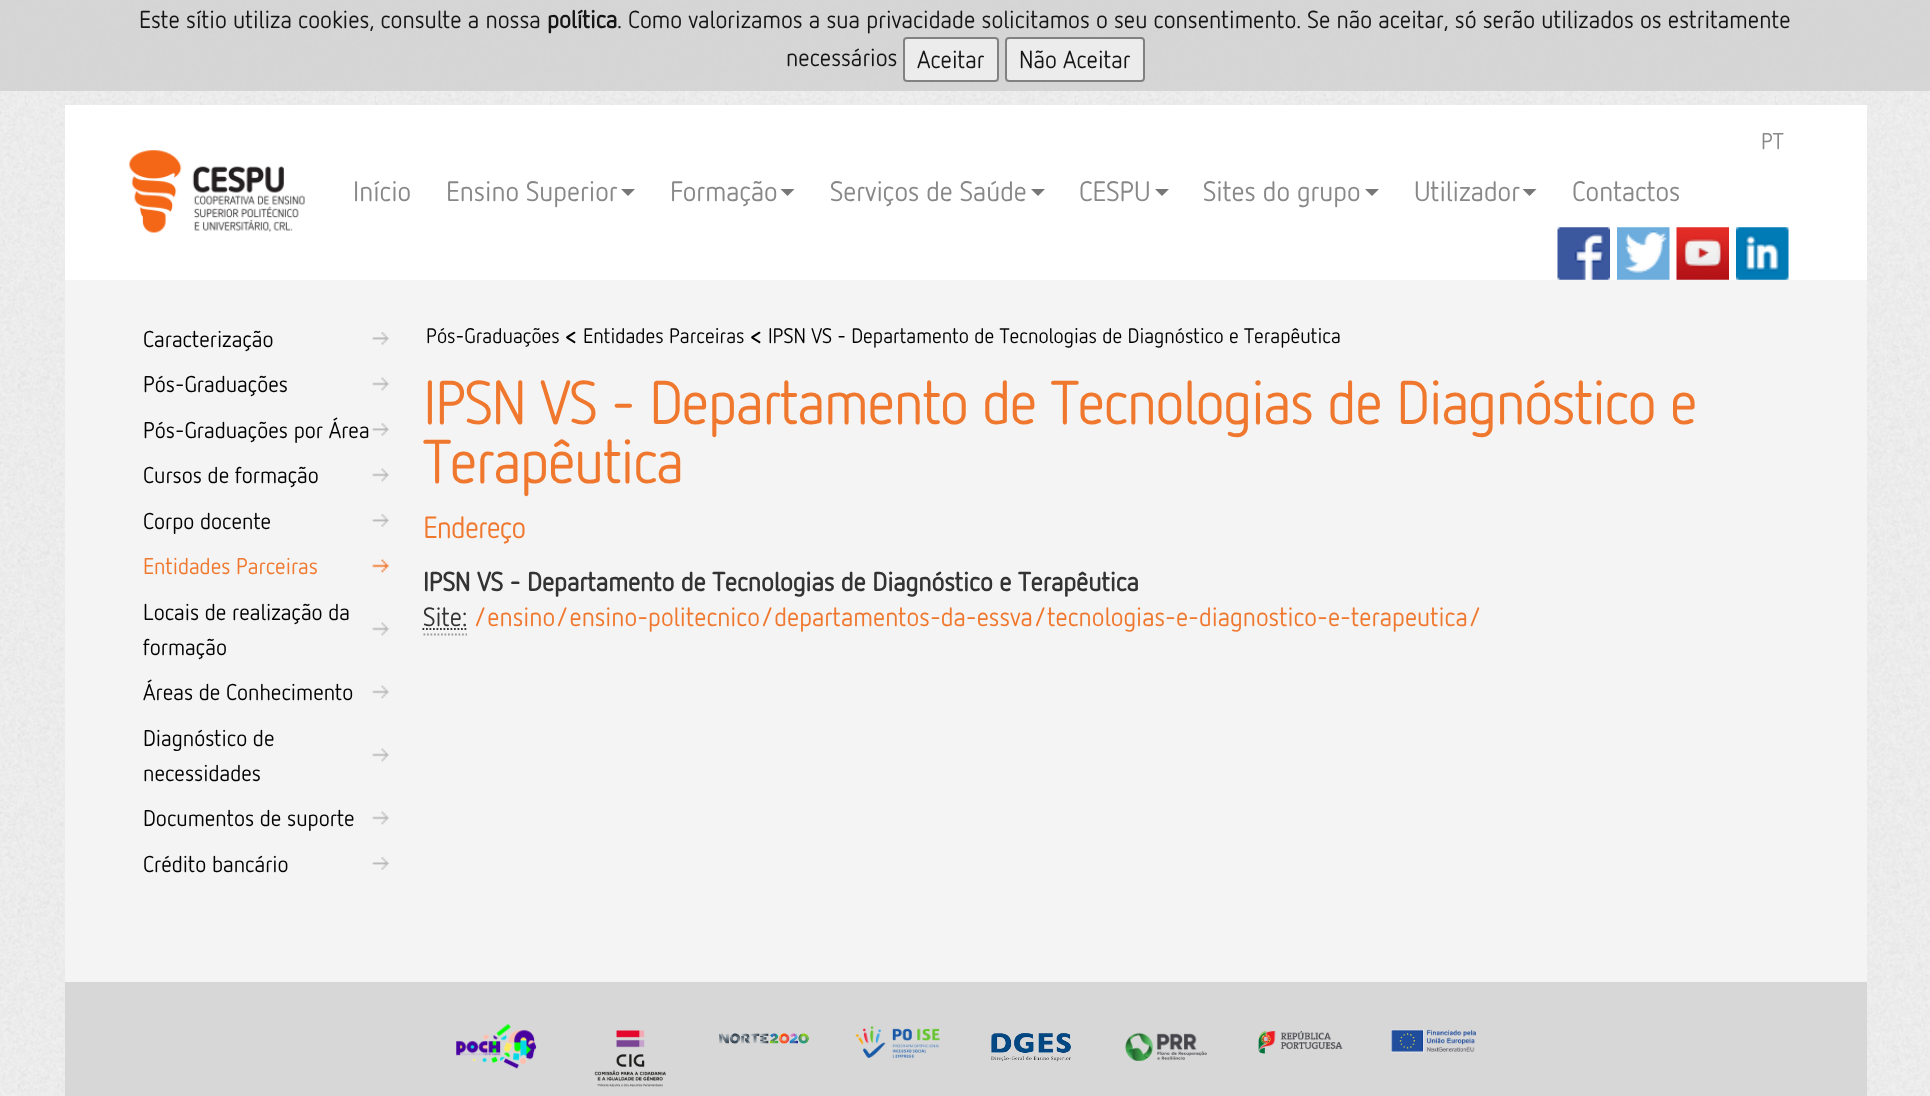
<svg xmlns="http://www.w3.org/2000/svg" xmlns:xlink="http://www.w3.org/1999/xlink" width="1930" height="1096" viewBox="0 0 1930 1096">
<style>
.cls-1{font:24.5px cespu;fill:#151515}
.cls-2{font:bold 24.5px cespu;fill:#151515}
.cls-3{font:22.75px cespu;fill:#888888}
.cls-4{font:28px cespu;fill:#888888}
.cls-5{font:22.75px cespu;fill:#000000}
.cls-6{font:22.75px cespu;fill:#f0782e}
.cls-7{font:21px cespu;fill:#000000}
.cls-8{font:bold 21px cespu;fill:#000000}
.cls-9{font:bold 59.1px 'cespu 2';fill:#f0782e}
.cls-10{font:bold 29.5px 'cespu 2';fill:#f0782e}
.cls-11{font:bold 26.25px cespu;fill:#333333}
.cls-12{font:26.25px cespu;fill:#333333}
.cls-13{font:26.25px cespu;fill:#f0782e}
</style>
<rect width="100%" height="100%" fill="#ffffff"/>
<image xlink:href="image0.png" x="0" y="0" width="1930" height="1096"/>
<rect fill="#d3d3d3" fill-opacity="0.9" x="0" y="0" width="1930" height="91"/>
<rect fill="#ececec" x="903" y="37" width="96" height="45" rx="4"/>
<rect fill="none" stroke="#767676" stroke-opacity="0.9" stroke-width="2" x="904" y="38" width="94" height="43" rx="3"/>
<rect fill="#ececec" x="1005" y="37" width="140" height="45" rx="4"/>
<rect fill="none" stroke="#767676" stroke-opacity="0.9" stroke-width="2" x="1006" y="38" width="138" height="43" rx="3"/>
<rect fill="#ffffff" x="65" y="105" width="1802" height="175"/>
<image xlink:href="image1.png" x="129" y="150" width="176" height="83"/>
<path fill="#777777" d="M621 189H635L628 196Z"/>
<path fill="#777777" d="M780.5 189H794.5L787.5 196Z"/>
<path fill="#777777" d="M1031 189H1045L1038 196Z"/>
<path fill="#777777" d="M1155 189H1169L1162 196Z"/>
<path fill="#777777" d="M1365 189H1379L1372 196Z"/>
<path fill="#777777" d="M1522.5 189H1536.5L1529.5 196Z"/>
<image xlink:href="image2.png" x="1557" y="227" width="53" height="53"/>
<image xlink:href="image3.png" x="1617" y="227" width="53" height="53"/>
<image xlink:href="image4.png" x="1676" y="227" width="53" height="53"/>
<image xlink:href="image5.png" x="1736" y="227" width="53" height="53"/>
<rect fill="#f4f4f4" x="65" y="280" width="1802" height="702"/>
<image xlink:href="image6.png" x="372" y="332" width="17" height="13"/>
<image xlink:href="image7.png" x="372" y="377" width="17" height="14"/>
<image xlink:href="image6.png" x="372" y="423" width="17" height="13"/>
<image xlink:href="image7.png" x="372" y="468" width="17" height="14"/>
<image xlink:href="image6.png" x="372" y="514" width="17" height="13"/>
<image xlink:href="image8.png" x="372" y="559" width="17" height="14"/>
<image xlink:href="image7.png" x="372" y="622" width="17" height="14"/>
<image xlink:href="image7.png" x="372" y="685" width="17" height="14"/>
<image xlink:href="image7.png" x="372" y="748" width="17" height="14"/>
<image xlink:href="image7.png" x="372" y="811" width="17" height="14"/>
<image xlink:href="image6.png" x="372" y="857" width="17" height="13"/>
<path fill="none" stroke="#999999" stroke-width="1.8" stroke-dasharray="1.75 1.75" d="M423.5 634.5H467"/>
<path fill="none" stroke="#333333" stroke-width="1.8" stroke-dasharray="1.75 1.75" d="M422.5 629H467"/>
<rect fill="#d7d7d7" x="65" y="982" width="1802" height="114"/>
<image xlink:href="image9.png" x="456" y="1023" width="81" height="46"/>
<image xlink:href="image10.png" x="594" y="1030" width="72" height="57"/>
<image xlink:href="image11.png" x="719" y="1033" width="91" height="11"/>
<image xlink:href="image12.png" x="855" y="1025" width="85" height="33"/>
<image xlink:href="image13.png" x="991" y="1033" width="80" height="29"/>
<image xlink:href="image14.png" x="1125" y="1032" width="82" height="29"/>
<image xlink:href="image15.png" x="1258" y="1030" width="85" height="24"/>
<image xlink:href="image16.png" x="1391" y="1029" width="85" height="24"/>
<text class="cls-1" x="139" y="28">Este sítio utiliza cookies, consulte a nossa</text>
<text class="cls-2" x="547" y="28">política</text>
<text class="cls-1" x="617" y="28">. Como valorizamos a sua privacidade solicitamos o seu consentimento. Se não aceitar, só serão utilizados os estritamente</text>
<text class="cls-1" x="786" y="66">necessários</text>
<text class="cls-1" x="917" y="68">Aceitar</text>
<text class="cls-1" x="1019" y="68">Não Aceitar</text>
<text class="cls-3" x="1761" y="149">PT</text>
<text class="cls-4" x="353" y="201">Início</text>
<text class="cls-4" x="446" y="201">Ensino Superior</text>
<text class="cls-4" x="670" y="201">Formação</text>
<text class="cls-4" x="830" y="201">Serviços de Saúde</text>
<text class="cls-4" x="1079" y="201">CESPU</text>
<text class="cls-4" x="1203" y="201">Sites do grupo</text>
<text class="cls-4" x="1414" y="201">Utilizador</text>
<text class="cls-4" x="1572" y="201">Contactos</text>
<text class="cls-5"><tspan x="143" y="347">Caracterização</tspan><tspan x="143" y="392">Pós-Graduações</tspan></text>
<text class="cls-5"><tspan x="143" y="438">Pós-Graduações por Área</tspan><tspan x="143" y="483">Cursos de formação</tspan></text>
<text class="cls-5" x="143" y="529">Corpo docente</text>
<text class="cls-6" x="143" y="574">Entidades Parceiras</text>
<text class="cls-5"><tspan x="143" y="620">Locais de realização da</tspan><tspan x="143" y="655">formação</tspan><tspan x="143" y="700">Áreas de Conhecimento</tspan></text>
<text class="cls-5"><tspan x="143" y="746">Diagnóstico de</tspan><tspan x="143" y="781">necessidades</tspan><tspan x="143" y="826">Documentos de suporte</tspan></text>
<text class="cls-5" x="143" y="872">Crédito bancário</text>
<text class="cls-7" x="426" y="343">Pós-Graduações</text>
<text class="cls-8" x="565" y="343">&lt;</text>
<text class="cls-7" x="583" y="343">Entidades Parceiras</text>
<text class="cls-8" x="750" y="343">&lt;</text>
<text class="cls-7" x="768" y="343">IPSN VS - Departamento de Tecnologias de Diagnóstico e Terapêutica</text>
<text class="cls-9"><tspan x="423" y="424">IPSN VS - Departamento de Tecnologias de Diagnóstico e</tspan><tspan x="423" y="483">Terapêutica</tspan></text>
<text class="cls-10" x="423" y="538">Endereço</text>
<text class="cls-11" x="423" y="591">IPSN VS - Departamento de Tecnologias de Diagnóstico e Terapêutica</text>
<text class="cls-12" x="423" y="626">Site:</text>
<text class="cls-13" x="473" y="626">/ensino/ensino-politecnico/departamentos-da-essva/tecnologias-e-diagnostico-e-terapeutica/</text>
</svg>
